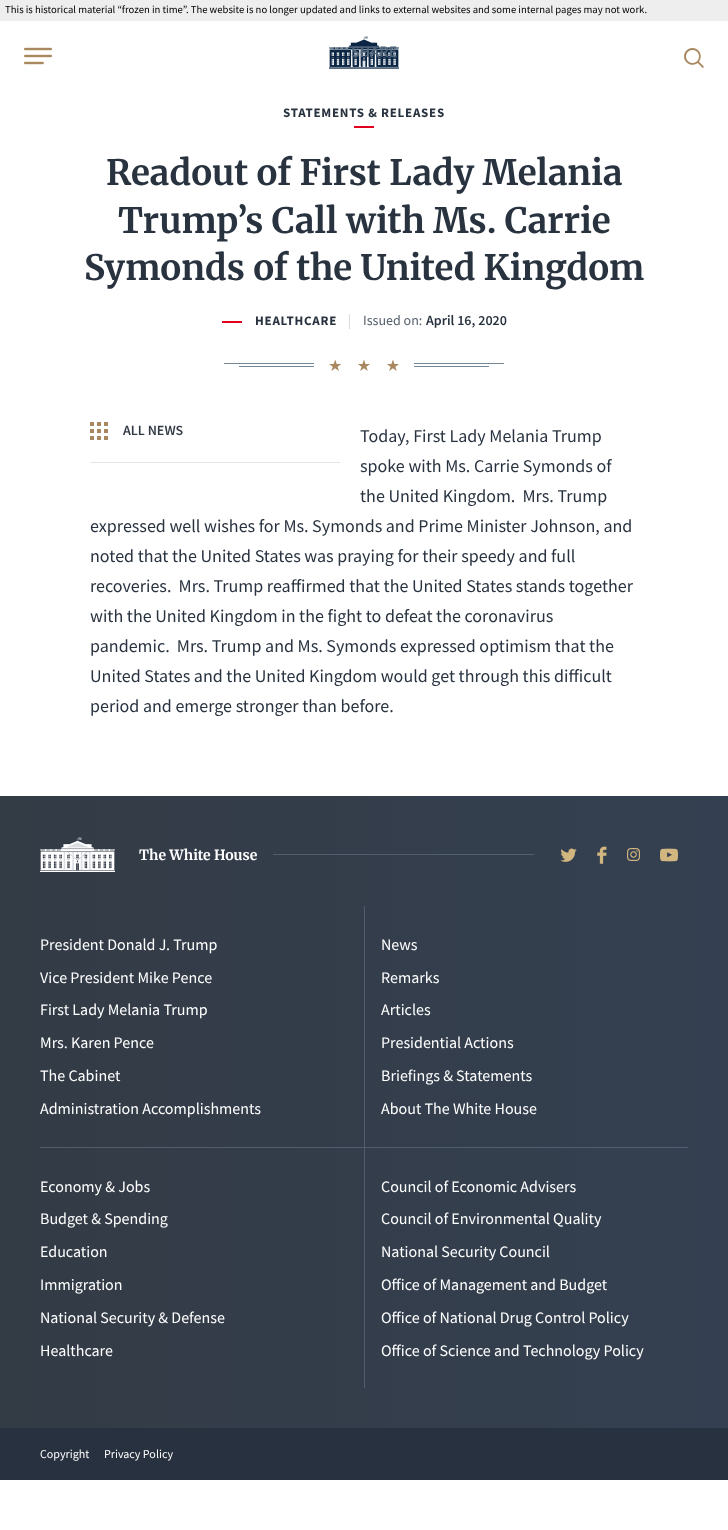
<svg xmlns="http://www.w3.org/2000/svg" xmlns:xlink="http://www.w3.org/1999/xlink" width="728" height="1530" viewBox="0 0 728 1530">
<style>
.cls-1{font:10.67px Source Sans Pro;fill:#000000}
.cls-2{font:600 16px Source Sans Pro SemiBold;fill:#50647a}
.cls-3{font:bold 13px Source Sans Pro;letter-spacing:0.75px;fill:#293340}
.cls-4{font:bold 35px Merriweather;fill:#293340}
.cls-5{font:14px Source Sans Pro;fill:#56616d}
.cls-6{font:600 14px Source Sans Pro SemiBold;fill:#293340}
.cls-7{font:16px DejaVu Sans;letter-spacing:14.5px;fill:#a98860}
.cls-8{font:600 14px Source Sans Pro SemiBold;fill:#323a45}
.cls-9{font:18px Source Sans Pro;fill:#293340}
.cls-10{font:bold 14px Merriweather;fill:#ffffff}
.cls-11{font:16px Source Sans Pro;fill:#ffffff}
.cls-12{font:12px Source Sans Pro;fill:#ffffff}
</style>
<defs>
<linearGradient id="g1" gradientUnits="userSpaceOnUse" x1="0" y1="1138" x2="728" y2="1138"><stop offset="0" stop-color="#333b45"/><stop offset="1" stop-color="#344051"/></linearGradient>
<linearGradient id="g2" gradientUnits="userSpaceOnUse" x1="0" y1="1138" x2="728" y2="1138"><stop offset="0" stop-color="#515b6a"/><stop offset="1" stop-color="#525f74"/></linearGradient>
</defs>
<rect width="100%" height="100%" fill="#ffffff"/>
<rect fill="#eeeeee" x="0" y="0" width="728" height="21"/>
<image xlink:href="image0.png" x="24" y="47" width="28" height="18"/>
<image xlink:href="image1.png" x="329" y="36" width="70" height="33"/>
<image xlink:href="image2.png" x="684" y="48" width="20" height="20"/>
<rect fill="#e20020" x="354" y="126" width="20" height="2"/>
<rect fill="#e20020" x="222" y="321" width="20" height="2"/>
<rect fill="#dbdbdb" x="349" y="314" width="1" height="15"/>
<rect fill="#748796" x="224" y="363" width="90" height="1"/>
<rect fill="#748796" x="239" y="366" width="75" height="1"/>
<rect fill="#748796" x="414" y="363" width="90" height="1"/>
<rect fill="#748796" x="414" y="366" width="75" height="1"/>
<rect fill="#e1e6ea" x="90" y="462" width="250" height="1"/>
<image xlink:href="image3.png" x="90" y="422" width="18" height="18"/>
<rect fill="url(#g1)" x="0" y="796" width="728" height="632"/>
<rect fill="url(#g2)" x="273" y="854" width="261" height="1"/>
<rect fill="url(#g2)" x="40" y="1147" width="324" height="1"/>
<image xlink:href="image4.png" x="40" y="837" width="75" height="35"/>
<image xlink:href="image5.png" x="560" y="848" width="17" height="14"/>
<image xlink:href="image6.png" x="597" y="846" width="10" height="18"/>
<image xlink:href="image7.png" x="627" y="848" width="13" height="13"/>
<image xlink:href="image8.png" x="660" y="848" width="18" height="14"/>
<rect fill="#525e6f" x="364" y="906" width="1" height="241"/>
<path fill="#c9ddff" fill-opacity="0.2" d="M364 1147H688V1148H365Z"/>
<path fill="#c9ddff" fill-opacity="0.2" d="M364 1388V1147L365 1148V1388Z"/>
<rect fill="#27313f" x="0" y="1428" width="728" height="52"/>
<text class="cls-1" x="5" y="13">This is historical material “frozen in time”. The website is no longer updated and links to external websites and some internal pages may not work.</text>
<text class="cls-2" x="351" y="57">SHARE</text>
<text class="cls-3" x="283" y="117">STATEMENTS &amp; RELEASES</text>
<text class="cls-4" x="106" y="185">Readout of First Lady Melania</text>
<text class="cls-4" x="118" y="233">Trump’s Call with Ms. Carrie</text>
<text class="cls-4" x="84" y="280">Symonds of the United Kingdom</text>
<text class="cls-3" x="255" y="325">HEALTHCARE</text>
<text class="cls-5" x="363" y="325">Issued on:</text>
<text class="cls-6" x="426" y="325">April 16, 2020</text>
<text class="cls-7" x="328" y="371">★★★</text>
<text class="cls-8" x="123" y="435">ALL NEWS</text>
<text class="cls-9" xml:space="preserve"><tspan x="360" y="442">Today, First Lady Melania Trump</tspan><tspan x="360" y="472">spoke with Ms. Carrie Symonds of</tspan><tspan x="360" y="502">the United Kingdom.  Mrs. Trump</tspan></text>
<text class="cls-9" xml:space="preserve"><tspan x="90" y="532">expressed well wishes for Ms. Symonds and Prime Minister Johnson, and</tspan><tspan x="90" y="562">noted that the United States was praying for their speedy and full</tspan><tspan x="90" y="592">recoveries.  Mrs. Trump reaffirmed that the United States stands together</tspan><tspan x="90" y="622">with the United Kingdom in the fight to defeat the coronavirus</tspan><tspan x="90" y="652">pandemic.  Mrs. Trump and Ms. Symonds expressed optimism that the</tspan><tspan x="90" y="682">United States and the United Kingdom would get through this difficult</tspan><tspan x="90" y="712">period and emerge stronger than before.</tspan></text>
<text class="cls-10" x="139" y="860">The White House</text>
<text class="cls-11" x="40" y="950">President Donald J. Trump</text>
<text class="cls-11" x="40" y="983">Vice President Mike Pence</text>
<text class="cls-11" x="40" y="1015">First Lady Melania Trump</text>
<text class="cls-11" x="40" y="1048">Mrs. Karen Pence</text>
<text class="cls-11" x="40" y="1081">The Cabinet</text>
<text class="cls-11" x="40" y="1114">Administration Accomplishments</text>
<text class="cls-11" x="381" y="950">News</text>
<text class="cls-11" x="381" y="983">Remarks</text>
<text class="cls-11" x="381" y="1015">Articles</text>
<text class="cls-11" x="381" y="1048">Presidential Actions</text>
<text class="cls-11" x="381" y="1081">Briefings &amp; Statements</text>
<text class="cls-11" x="381" y="1114">About The White House</text>
<text class="cls-11" x="40" y="1192">Economy &amp; Jobs</text>
<text class="cls-11" x="40" y="1224">Budget &amp; Spending</text>
<text class="cls-11" x="40" y="1257">Education</text>
<text class="cls-11" x="40" y="1290">Immigration</text>
<text class="cls-11" x="40" y="1323">National Security &amp; Defense</text>
<text class="cls-11" x="40" y="1356">Healthcare</text>
<text class="cls-11" x="381" y="1192">Council of Economic Advisers</text>
<text class="cls-11" x="381" y="1224">Council of Environmental Quality</text>
<text class="cls-11" x="381" y="1257">National Security Council</text>
<text class="cls-11" x="381" y="1290">Office of Management and Budget</text>
<text class="cls-11" x="381" y="1323">Office of National Drug Control Policy</text>
<text class="cls-11" x="381" y="1356">Office of Science and Technology Policy</text>
<text class="cls-12" x="40" y="1458">Copyright</text>
<text class="cls-12" x="104" y="1458">Privacy Policy</text>
</svg>
